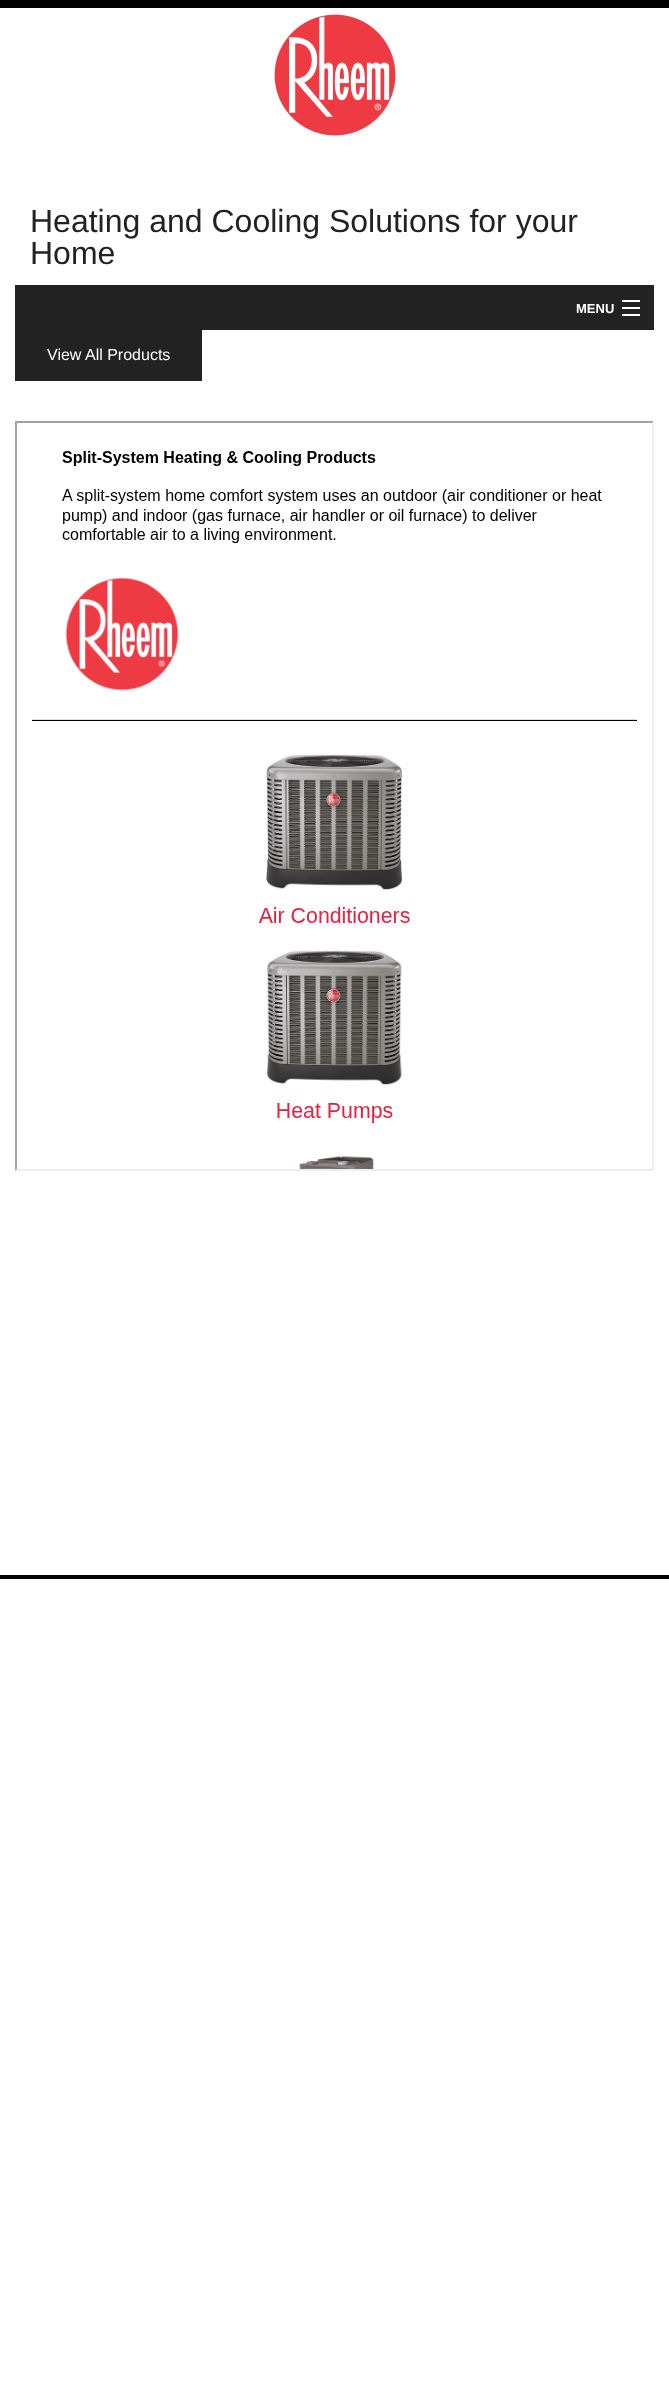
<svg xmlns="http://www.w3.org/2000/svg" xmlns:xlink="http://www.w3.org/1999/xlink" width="669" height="2390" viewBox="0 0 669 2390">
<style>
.cls-1{font:32px Liberation Sans;fill:#222222}
.cls-2{font:bold 13px Liberation Sans;fill:#ffffff}
.cls-3{font:16px Liberation Sans;fill:#ffffff}
</style>
<rect width="100%" height="100%" fill="#ffffff"/>
<rect fill="#000000" x="0" y="0" width="669" height="8"/>
<image xlink:href="image0.png" x="274" y="14" width="122" height="122"/>
<rect fill="#222222" x="15" y="285" width="639" height="45"/>
<rect fill="#ffffff" x="622" y="314" width="18" height="2"/>
<rect fill="#ffffff" x="622" y="307" width="18" height="2"/>
<rect fill="#ffffff" x="622" y="300" width="18" height="2"/>
<rect fill="#222222" x="15" y="330" width="187" height="51"/>
<path fill="#9f9f9f" d="M15 421H654L652 423H17Z"/>
<path fill="#eeeeee" d="M654 421V1171L652 1169V423Z"/>
<path fill="#eeeeee" d="M654 1171H15L17 1169H652Z"/>
<path fill="#9f9f9f" d="M15 1171V421L17 423V1169Z"/>
<image xlink:href="image1.png" x="32" y="451" width="605" height="718"/>
<rect fill="#000000" x="0" y="1575" width="669" height="4"/>
<text class="cls-1"><tspan x="30" y="232">Heating and Cooling Solutions for your</tspan><tspan x="30" y="264">Home</tspan></text>
<text class="cls-2" x="576" y="313">MENU</text>
<text class="cls-3" x="47" y="360">View All Products</text>
</svg>
